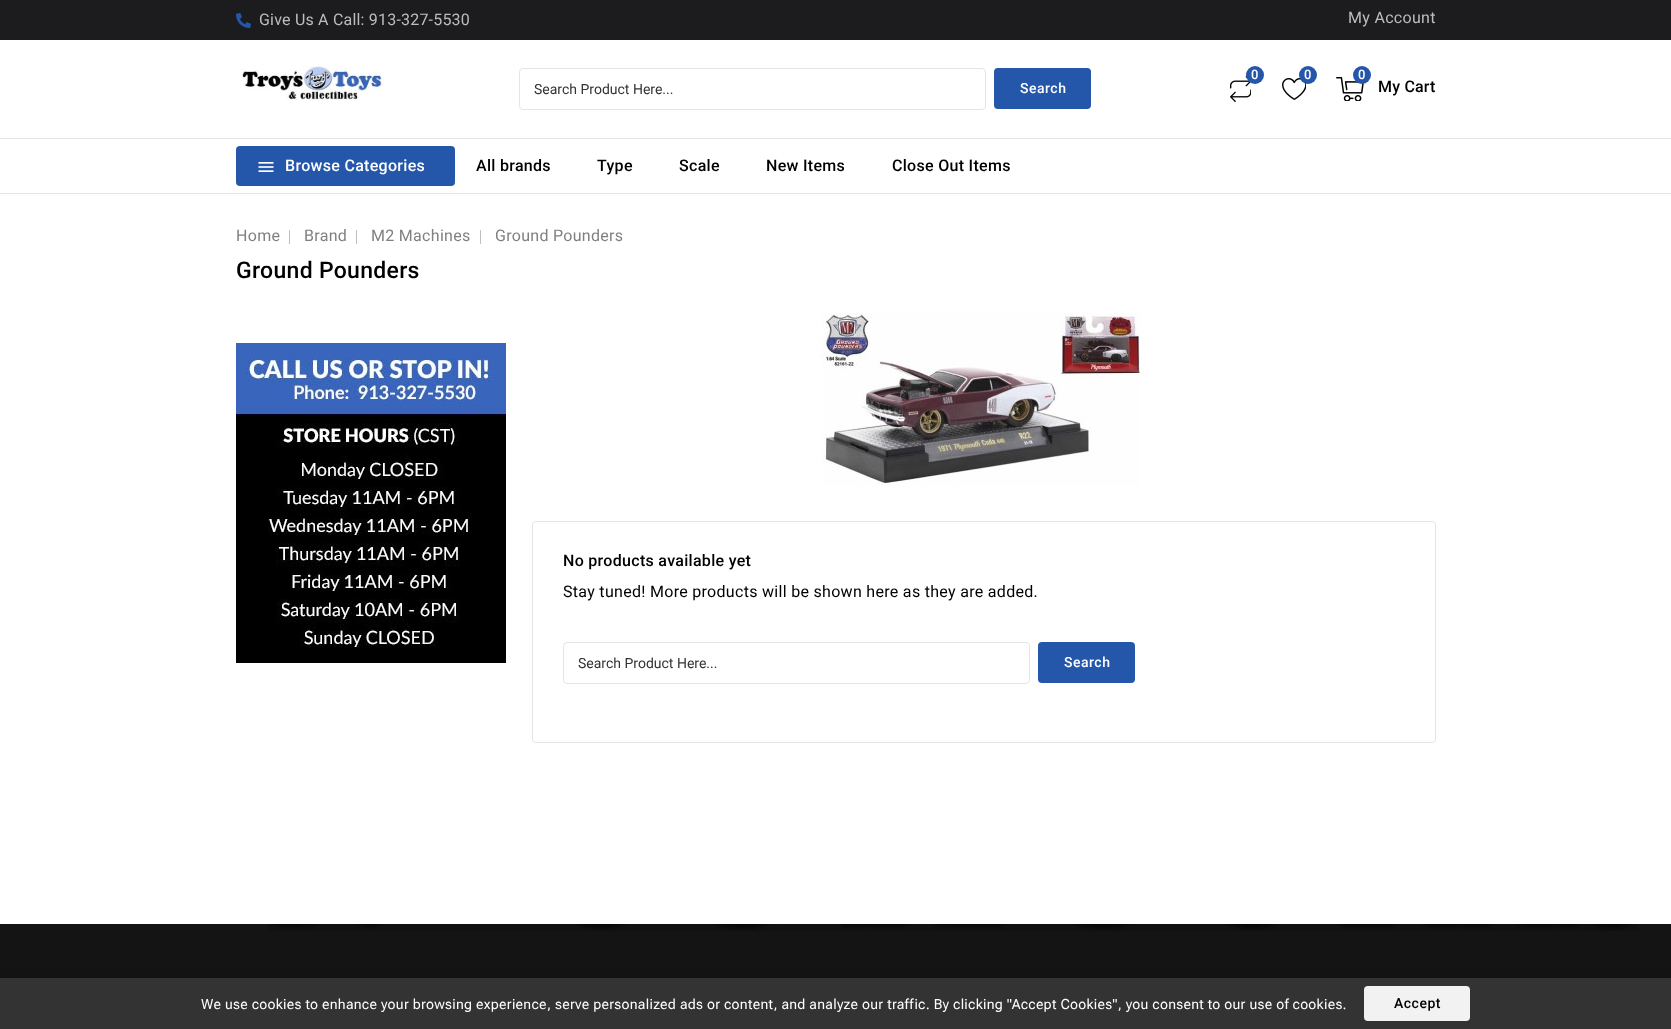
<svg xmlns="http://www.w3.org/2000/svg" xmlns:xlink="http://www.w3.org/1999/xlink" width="1671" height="1029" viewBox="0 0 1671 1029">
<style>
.cls-1{font:16px Roboto;letter-spacing:0.2px;fill:#bdbdbd}
.cls-2{font:16px Roboto;letter-spacing:0.3px;fill:#bdbdbd}
.cls-3{font:14px Roboto;fill:#333333}
.cls-4{font:500 14px Roboto;letter-spacing:0.5px;fill:#ffffff}
.cls-5{font:500 13px Roboto;letter-spacing:0.3px;fill:#ffffff}
.cls-6{font:500 16px Roboto;letter-spacing:0.2px;fill:#000000}
.cls-7{font:500 16px Roboto;letter-spacing:0.3px;fill:#ffffff}
.cls-8{font:500 16px Roboto;letter-spacing:0.3px;fill:#000000}
.cls-9{font:16px Roboto;letter-spacing:0.3px;fill:#808080}
.cls-10{font:500 23px Roboto;letter-spacing:0.3px;fill:#000000}
.cls-11{font:16px Roboto;letter-spacing:0.3px;fill:#000000}
.cls-12{font:14px Roboto Flex;letter-spacing:0.3px;fill:#ffffff}
.cls-13{font:500 14px Roboto;letter-spacing:0.5px;fill:#000000}
</style>
<rect width="100%" height="100%" fill="#ffffff"/>
<rect fill="#1c1c1e" x="0" y="0" width="1671" height="40"/>
<image xlink:href="image0.png" x="236" y="13" width="15" height="15"/>
<image xlink:href="image1.png" x="242" y="66" width="142" height="34"/>
<rect fill="none" stroke="#e5e5e5" x="519.5" y="68.5" width="466" height="41" rx="3.5"/>
<rect fill="#2457aa" x="994" y="68" width="97" height="41" rx="4"/>
<image xlink:href="image2.png" x="1230" y="76" width="21" height="26"/>
<circle fill="#2457aa" cx="1255" cy="75" r="9"/>
<image xlink:href="image3.png" x="1282" y="78" width="24" height="22"/>
<circle fill="#2457aa" cx="1308" cy="75" r="9"/>
<image xlink:href="image4.png" x="1336" y="77" width="28" height="24"/>
<circle fill="#2457aa" cx="1362" cy="75" r="9"/>
<rect fill="#e5e5e5" x="0" y="138" width="1671" height="1"/>
<rect fill="#e5e5e5" x="0" y="193" width="1671" height="1"/>
<rect fill="#2457aa" x="236" y="146" width="219" height="40" rx="4"/>
<image xlink:href="image5.png" x="258" y="162" width="16" height="10"/>
<rect fill="#bfbfbf" x="289" y="230" width="1" height="14"/>
<rect fill="#bfbfbf" x="356" y="230" width="1" height="14"/>
<rect fill="#bfbfbf" x="480" y="230" width="1" height="14"/>
<image xlink:href="image6.png" x="236" y="343" width="270" height="320"/>
<image xlink:href="image7.png" x="820" y="313" width="320" height="173"/>
<rect fill="none" stroke="#e5e5e5" x="532.5" y="521.5" width="903" height="221" rx="3.5"/>
<rect fill="none" stroke="#e5e5e5" x="563.5" y="642.5" width="466" height="41" rx="3.5"/>
<rect fill="#2457aa" x="1038" y="642" width="97" height="41" rx="4"/>
<rect fill="#141414" x="0" y="924" width="1671" height="54"/>
<image xlink:href="image8.png" x="268" y="924" width="1371" height="7"/>
<rect fill="#000000" fill-opacity="0.2" filter="blur(5px)" x="0" y="978" width="1671" height="51"/>
<rect fill="#333333" x="0" y="978" width="1671" height="51"/>
<rect fill="#f2f2f2" x="1364" y="986" width="106" height="35" rx="4"/>
<text class="cls-1" x="259" y="25">Give Us A Call: 913-327-5530</text>
<text class="cls-2" x="1348" y="23">My Account</text>
<text class="cls-3" x="534" y="94">Search Product Here...</text>
<text class="cls-4" x="1020" y="93">Search</text>
<text class="cls-5" x="1251" y="79">0</text>
<text class="cls-5" x="1304" y="79">0</text>
<text class="cls-5" x="1358" y="79">0</text>
<text class="cls-6" x="1378" y="92">My Cart</text>
<text class="cls-7" x="285" y="171">Browse Categories</text>
<text class="cls-8" x="476" y="171">All brands</text>
<text class="cls-8" x="597" y="171">Type</text>
<text class="cls-8" x="679" y="171">Scale</text>
<text class="cls-8" x="766" y="171">New Items</text>
<text class="cls-8" x="892" y="171">Close Out Items</text>
<text class="cls-9" x="236" y="241">Home</text>
<text class="cls-9" x="304" y="241">Brand</text>
<text class="cls-9" x="371" y="241">M2 Machines</text>
<text class="cls-9" x="495" y="241">Ground Pounders</text>
<text class="cls-10" x="236" y="278">Ground Pounders</text>
<text class="cls-8" x="563" y="566">No products available yet</text>
<text class="cls-11" x="563" y="597">Stay tuned! More products will be shown here as they are added.</text>
<text class="cls-3" x="578" y="668">Search Product Here...</text>
<text class="cls-4" x="1064" y="667">Search</text>
<text class="cls-12" x="201" y="1009">We use cookies to enhance your browsing experience, serve personalized ads or content, and analyze our traffic. By clicking "Accept Cookies", you consent to our use of cookies.</text>
<text class="cls-13" x="1394" y="1008">Accept</text>
</svg>
